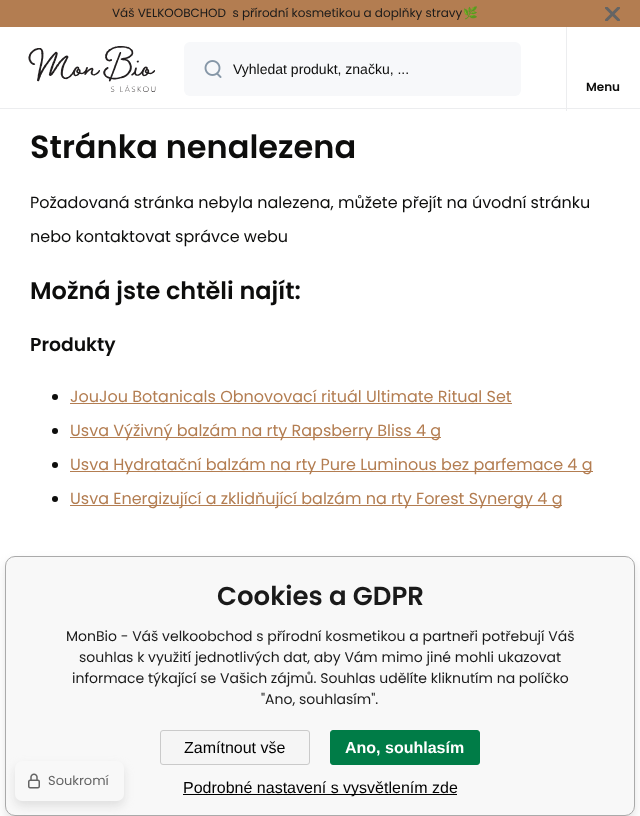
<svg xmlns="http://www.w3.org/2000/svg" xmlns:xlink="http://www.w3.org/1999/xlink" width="640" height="816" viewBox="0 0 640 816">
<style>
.cls-1{font:12px Poppins;fill:#1a1a1a}
.cls-2{font:12px Noto Color Emoji;fill:#1a1a1a}
.cls-3{font:14px Liberation Sans;fill:#0d0d0c}
.cls-4{font:600 12px Poppins;fill:#0d0d0c}
.cls-5{font:600 32px Poppins;fill:#0d0d0c}
.cls-6{font:16px Poppins;fill:#0d0d0c}
.cls-7{font:600 24px Poppins;fill:#0d0d0c}
.cls-8{font:600 18.75px Poppins;fill:#0d0d0c}
.cls-9{font:16px Poppins;fill:#b37d51}
.cls-10{font:600 26px Poppins;fill:#1a1a1a}
.cls-11{font:14px Poppins;fill:#1a1a1a}
.cls-12{font:16px Liberation Sans;fill:#000000}
.cls-13{font:bold 16px Liberation Sans;fill:#ffffff}
.cls-14{font:13px Poppins;fill:#646464}
</style>
<defs>
<clipPath id="clip1"><rect x="605" y="7" width="15" height="14"/></clipPath>
</defs>
<rect width="100%" height="100%" fill="#ffffff"/>
<rect fill="#b37d51" x="0" y="0" width="640" height="27"/>
<g clip-path="url(#clip1)">
<path fill="none" stroke="#646464" stroke-width="3" stroke-linecap="round" d="M606.5 8L618.5 20M606.5 20L618.5 8"/>
</g>
<rect fill="#ecedef" x="0" y="108" width="640" height="1"/>
<image xlink:href="image0.png" x="28" y="46" width="128" height="46"/>
<rect fill="#f7f8fa" x="184" y="42" width="337" height="54" rx="6"/>
<image xlink:href="image1.png" x="204" y="60" width="18" height="18"/>
<rect fill="#ecedef" x="566" y="27" width="1" height="84"/>
<circle fill="#0d0d0c" cx="55" cy="397" r="3"/>
<rect fill="#b37d51" x="70" y="403" width="442" height="1"/>
<circle fill="#0d0d0c" cx="55" cy="431" r="3"/>
<rect fill="#b37d51" x="70" y="437" width="371" height="1"/>
<circle fill="#0d0d0c" cx="55" cy="465" r="3"/>
<rect fill="#b37d51" x="70" y="471" width="523" height="1"/>
<circle fill="#0d0d0c" cx="55" cy="499" r="3"/>
<rect fill="#b37d51" x="70" y="505" width="492" height="1"/>
<rect fill="#c8c8c8" fill-opacity="0.5" filter="blur(5px)" x="5" y="561" width="630" height="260" rx="10"/>
<rect fill="#f8f8f8" stroke="#aaaaaa" x="5.5" y="556.5" width="629" height="259" rx="9.5"/>
<rect fill="#f5f5f5" stroke="#cacaca" x="160.5" y="730.5" width="149" height="34" rx="2.5"/>
<rect fill="#007c47" stroke="#007c47" x="330.5" y="730.5" width="149" height="34" rx="2.5"/>
<rect fill="#000000" x="183" y="794" width="274" height="1"/>
<rect fill="#c8c8c8" fill-opacity="0.5" filter="blur(5px)" x="15" y="766" width="109" height="40" rx="7"/>
<rect fill="#f8f8f8" x="15" y="761" width="109" height="40" rx="7"/>
<image xlink:href="image2.png" x="28" y="773" width="12" height="16"/>
<text class="cls-1" xml:space="preserve" x="112" y="17">Váš VELKOOBCHOD  s přírodní kosmetikou a doplňky stravy</text>
<text class="cls-2" x="463" y="17">🌿</text>
<text class="cls-3" x="233" y="74">Vyhledat produkt, značku, ...</text>
<text class="cls-4" x="586" y="91">Menu</text>
<text class="cls-5" x="30" y="158">Stránka nenalezena</text>
<text class="cls-6" x="30" y="208">Požadovaná stránka nebyla nalezena, můžete přejít na úvodní stránku</text>
<text class="cls-6" x="30" y="242">nebo kontaktovat správce webu</text>
<text class="cls-7" x="30" y="299">Možná jste chtěli najít:</text>
<text class="cls-8" x="30" y="351">Produkty</text>
<text class="cls-9" x="70" y="402">JouJou Botanicals Obnovovací rituál Ultimate Ritual Set</text>
<text class="cls-9" x="70" y="436">Usva Výživný balzám na rty Rapsberry Bliss 4 g</text>
<text class="cls-9" x="70" y="470">Usva Hydratační balzám na rty Pure Luminous bez parfemace 4 g</text>
<text class="cls-9" x="70" y="504">Usva Energizující a zklidňující balzám na rty Forest Synergy 4 g</text>
<text class="cls-10" x="217" y="605">Cookies a GDPR</text>
<text class="cls-11" x="66" y="641">MonBio - Váš velkoobchod s přírodní kosmetikou a partneři potřebují Váš</text>
<text class="cls-11" x="79" y="662">souhlas k využití jednotlivých dat, aby Vám mimo jiné mohli ukazovat</text>
<text class="cls-11" x="72" y="683">informace týkající se Vašich zájmů. Souhlas udělíte kliknutím na políčko</text>
<text class="cls-11" x="261" y="704">"Ano, souhlasím".</text>
<text class="cls-12" x="184" y="753">Zamítnout vše</text>
<text class="cls-13" x="345" y="753">Ano, souhlasím</text>
<text class="cls-12" x="183" y="793">Podrobné nastavení s vysvětlením zde</text>
<text class="cls-14" x="48" y="785">Soukromí</text>
</svg>
